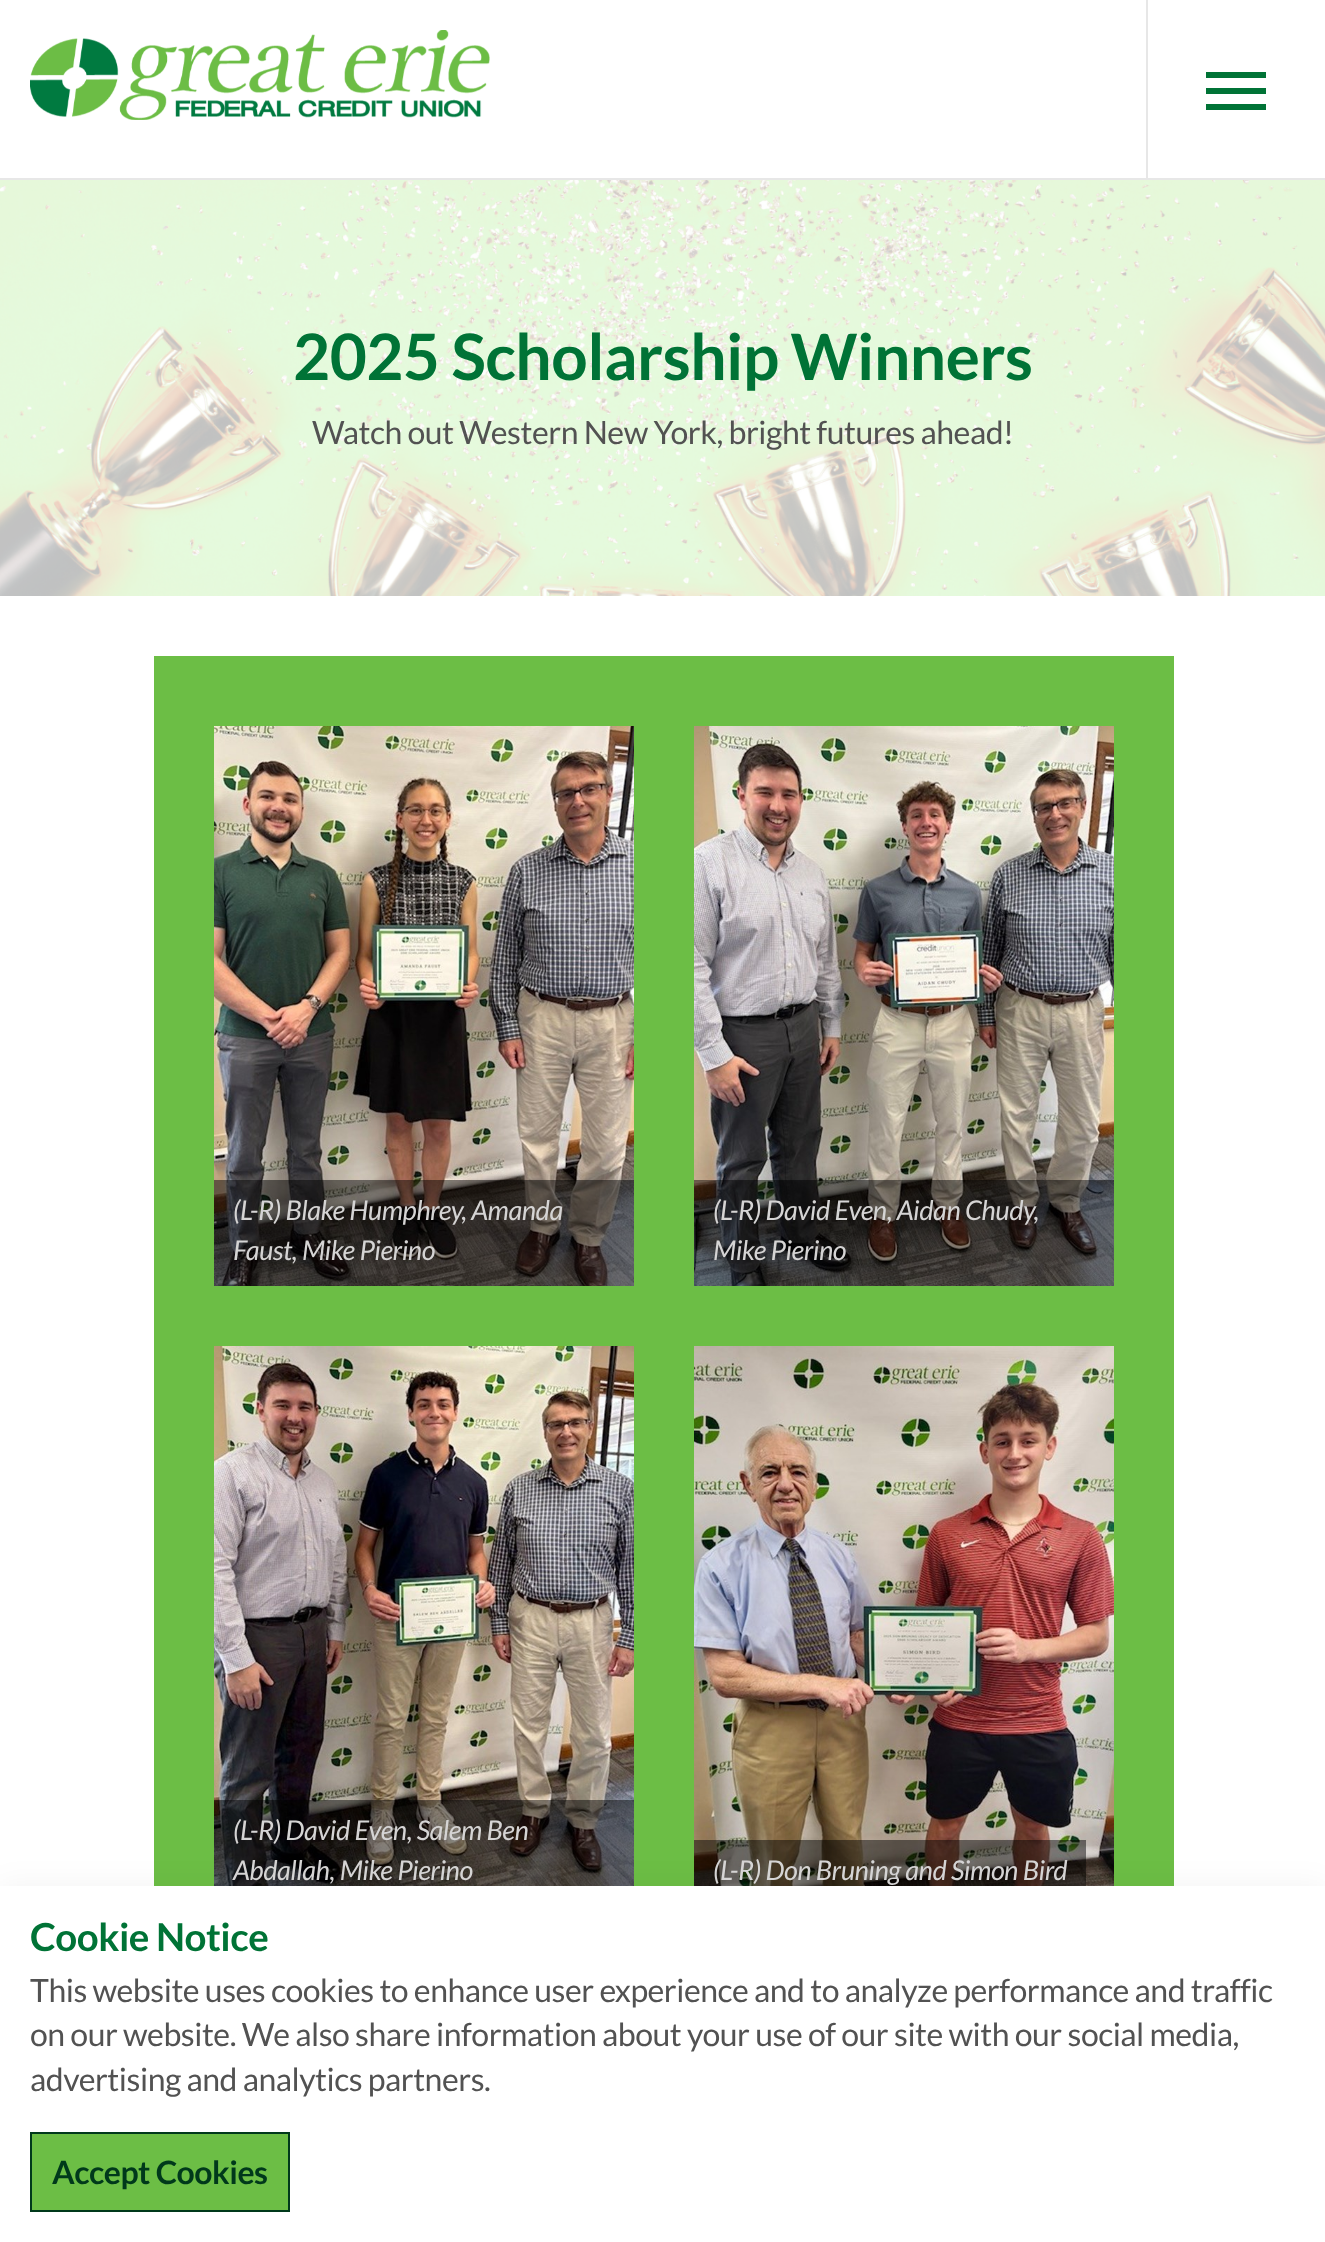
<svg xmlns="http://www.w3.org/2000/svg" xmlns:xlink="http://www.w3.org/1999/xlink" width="1325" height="2242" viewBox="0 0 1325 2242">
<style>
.cls-1{font:bold 64px Lato;letter-spacing:-0.48px;fill:#007336}
.cls-2{font:32px Lato;letter-spacing:-0.48px;fill:#525252}
.cls-3{font:italic 27.25px Lato;letter-spacing:-0.48px;fill:#d5d4d4}
.cls-4{font:bold 38.5px Lato;letter-spacing:-0.48px;fill:#007336}
.cls-5{font:bold 32px Lato;letter-spacing:-0.48px;fill:#00391b}
</style>
<rect width="100%" height="100%" fill="#ffffff"/>
<image xlink:href="image0.png" x="30" y="30" width="460" height="90"/>
<rect fill="#e7e7e7" x="0" y="178" width="1325" height="2"/>
<rect fill="#e7e7e7" x="1146" y="0" width="2" height="180"/>
<rect fill="#007336" x="1206" y="88" width="60" height="6"/>
<rect fill="#007336" x="1206" y="72" width="60" height="6"/>
<rect fill="#007336" x="1206" y="104" width="60" height="6"/>
<image xlink:href="image1.png" x="0" y="180" width="1325" height="416"/>
<rect fill="#6cbe45" x="154" y="656" width="1020" height="1230"/>
<image xlink:href="image2.png" x="214" y="726" width="420" height="560"/>
<rect fill="#000000" fill-opacity="0.48" x="214" y="1180" width="420" height="106"/>
<image xlink:href="image3.png" x="694" y="726" width="420" height="560"/>
<rect fill="#000000" fill-opacity="0.48" x="694" y="1180" width="420" height="106"/>
<image xlink:href="image4.png" x="214" y="1346" width="420" height="540"/>
<rect fill="#000000" fill-opacity="0.48" x="214" y="1800" width="420" height="86"/>
<image xlink:href="image5.png" x="694" y="1346" width="420" height="540"/>
<rect fill="#000000" fill-opacity="0.48" x="694" y="1840" width="392" height="46"/>
<rect fill="#000000" fill-opacity="0.05" filter="blur(15px)" x="0" y="1886" width="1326" height="356"/>
<rect fill="#ffffff" x="0" y="1886" width="1325" height="356"/>
<rect fill="#6cbe45" stroke="#00391b" stroke-width="2" x="31" y="2133" width="258" height="78"/>
<text class="cls-1" x="293" y="380">2025 Scholarship Winners</text>
<text class="cls-2" x="312" y="444">Watch out Western New York, bright futures ahead!</text>
<text class="cls-3"><tspan x="233" y="1220">(L-R) Blake Humphrey, Amanda</tspan><tspan x="233" y="1260">Faust, Mike Pierino</tspan></text>
<text class="cls-3"><tspan x="713" y="1220">(L-R) David Even, Aidan Chudy,</tspan><tspan x="713" y="1260">Mike Pierino</tspan></text>
<text class="cls-3"><tspan x="233" y="1840">(L-R) David Even, Salem Ben</tspan><tspan x="233" y="1880">Abdallah, Mike Pierino</tspan></text>
<text class="cls-3" x="713" y="1880">(L-R) Don Bruning and Simon Bird</text>
<text class="cls-4" x="30" y="1951">Cookie Notice</text>
<text class="cls-2"><tspan x="30" y="2002">This website uses cookies to enhance user experience and to analyze performance and traffic</tspan><tspan x="30" y="2046">on our website. We also share information about your use of our site with our social media,</tspan><tspan x="30" y="2091">advertising and analytics partners.</tspan></text>
<text class="cls-5" x="52" y="2184">Accept Cookies</text>
</svg>
